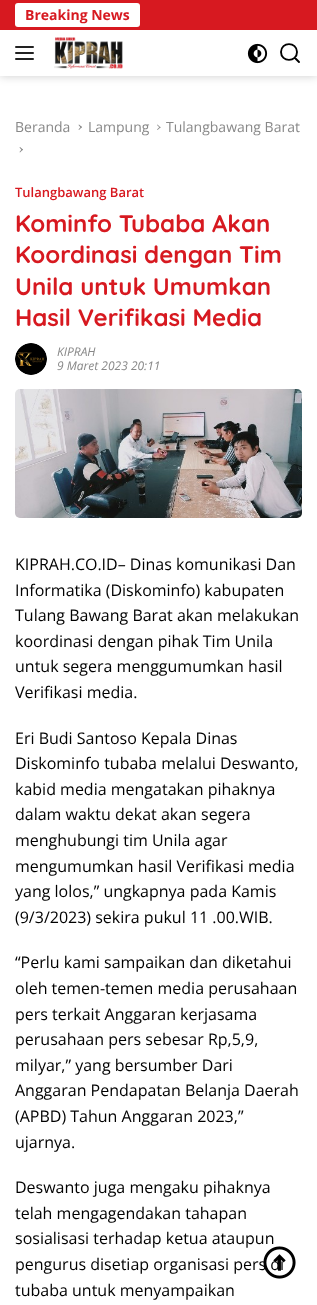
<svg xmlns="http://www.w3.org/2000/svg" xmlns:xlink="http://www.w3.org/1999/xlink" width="317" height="1305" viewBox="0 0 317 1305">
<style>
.cls-1{font:bold 14px Open Sans;fill:#d71920}
.cls-2{font:14px Open Sans;fill:#888888}
.cls-3{font:600 13px Open Sans;fill:#d71920}
.cls-4{font:bold 24px Quicksand;fill:#d71920}
.cls-5{font:italic 12px Open Sans;fill:#888888}
.cls-6{font:16px Open Sans;fill:#000000}
</style>
<rect width="100%" height="100%" fill="#ffffff"/>
<rect fill="#000000" fill-opacity="0.2" filter="blur(5px)" x="0" y="0" width="317" height="76"/>
<rect fill="#ffffff" x="0" y="30" width="317" height="46"/>
<rect fill="#d71920" x="0" y="0" width="317" height="30"/>
<rect fill="#ffffff" x="15" y="3" width="125" height="24" rx="3"/>
<rect fill="#222222" x="15" y="46" width="19" height="2" rx="1"/>
<rect fill="#222222" x="15" y="52" width="19" height="2" rx="1"/>
<rect fill="#222222" x="15" y="58" width="19" height="2" rx="1"/>
<image xlink:href="image0.png" x="54" y="37" width="69" height="32"/>
<image xlink:href="image1.png" x="247" y="43" width="21" height="21"/>
<path fill="none" stroke="#000000" stroke-width="1.9" stroke-linecap="round" d="M299 62L295 58M297 52C297 62.5 281 62.5 281 52C281 41.5 297 41.5 297 52Z"/>
<path fill="#888888" d="M78.5 125L79 124.5L82 127L81 128Z"/>
<path fill="#888888" d="M78.5 129.5L81 126.5L82 127L79 130Z"/>
<path fill="#888888" d="M157 125L157.5 124.5L160.5 127.5L160 128Z"/>
<path fill="#888888" d="M157 129.5L160 126.5L160.5 127.5L157.5 130Z"/>
<path fill="#888888" d="M19.5 147.5L20 147L23 149.5L22 150.5Z"/>
<path fill="#888888" d="M19.5 152L22 149L23 149.5L20 152.5Z"/>
<image xlink:href="image2.png" x="15" y="343" width="32" height="32"/>
<image xlink:href="image3.png" x="15" y="389" width="287" height="129"/>
<text class="cls-1" x="25" y="20">Breaking News</text>
<text class="cls-2" x="15" y="132">Beranda</text>
<text class="cls-2" x="88" y="132">Lampung</text>
<text class="cls-2" x="166" y="132">Tulangbawang Barat</text>
<text class="cls-3" x="15" y="197">Tulangbawang Barat</text>
<text class="cls-4"><tspan x="15" y="232">Kominfo Tubaba Akan</tspan><tspan x="15" y="263">Koordinasi dengan Tim</tspan><tspan x="15" y="295">Unila untuk Umumkan</tspan><tspan x="15" y="326">Hasil Verifikasi Media</tspan></text>
<text class="cls-5"><tspan x="57" y="356">KIPRAH</tspan><tspan x="57" y="370">9 Maret 2023 20:11</tspan></text>
<text class="cls-6"><tspan x="15" y="570">KIPRAH.CO.ID– Dinas komunikasi Dan</tspan><tspan x="15" y="596">Informatika (Diskominfo) kabupaten</tspan><tspan x="15" y="621">Tulang Bawang Barat akan melakukan</tspan><tspan x="15" y="647">koordinasi dengan pihak Tim Unila</tspan><tspan x="15" y="672">untuk segera menggumumkan hasil</tspan><tspan x="15" y="698">Verifikasi media.</tspan></text>
<text class="cls-6"><tspan x="15" y="744">Eri Budi Santoso Kepala Dinas</tspan><tspan x="15" y="769">Diskominfo tubaba melalui Deswanto,</tspan><tspan x="15" y="795">kabid media mengatakan pihaknya</tspan><tspan x="15" y="820">dalam waktu dekat akan segera</tspan><tspan x="15" y="846">menghubungi tim Unila agar</tspan><tspan x="15" y="872">mengumumkan hasil Verifikasi media</tspan><tspan x="15" y="897">yang lolos,” ungkapnya pada Kamis</tspan><tspan x="15" y="923">(9/3/2023) sekira pukul 11 .00.WIB.</tspan></text>
<text class="cls-6"><tspan x="15" y="968">“Perlu kami sampaikan dan diketahui</tspan><tspan x="15" y="994">oleh temen-temen media perusahaan</tspan><tspan x="15" y="1020">pers terkait Anggaran kerjasama</tspan><tspan x="15" y="1045">perusahaan pers sebesar Rp,5,9,</tspan><tspan x="15" y="1071">milyar,” yang bersumber Dari</tspan><tspan x="15" y="1096">Anggaran Pendapatan Belanja Daerah</tspan><tspan x="15" y="1122">(APBD) Tahun Anggaran 2023,”</tspan><tspan x="15" y="1148">ujarnya.</tspan></text>
<text class="cls-6"><tspan x="15" y="1193">Deswanto juga mengaku pihaknya</tspan><tspan x="15" y="1219">telah mengagendakan tahapan</tspan><tspan x="15" y="1244">sosialisasi terhadap ketua ataupun</tspan><tspan x="15" y="1270">pengurus disetiap organisasi pers di</tspan><tspan x="15" y="1296">tubaba untuk menyampaikan</tspan></text>
<image xlink:href="image4.png" x="263" y="1246" width="33" height="33"/>
</svg>
